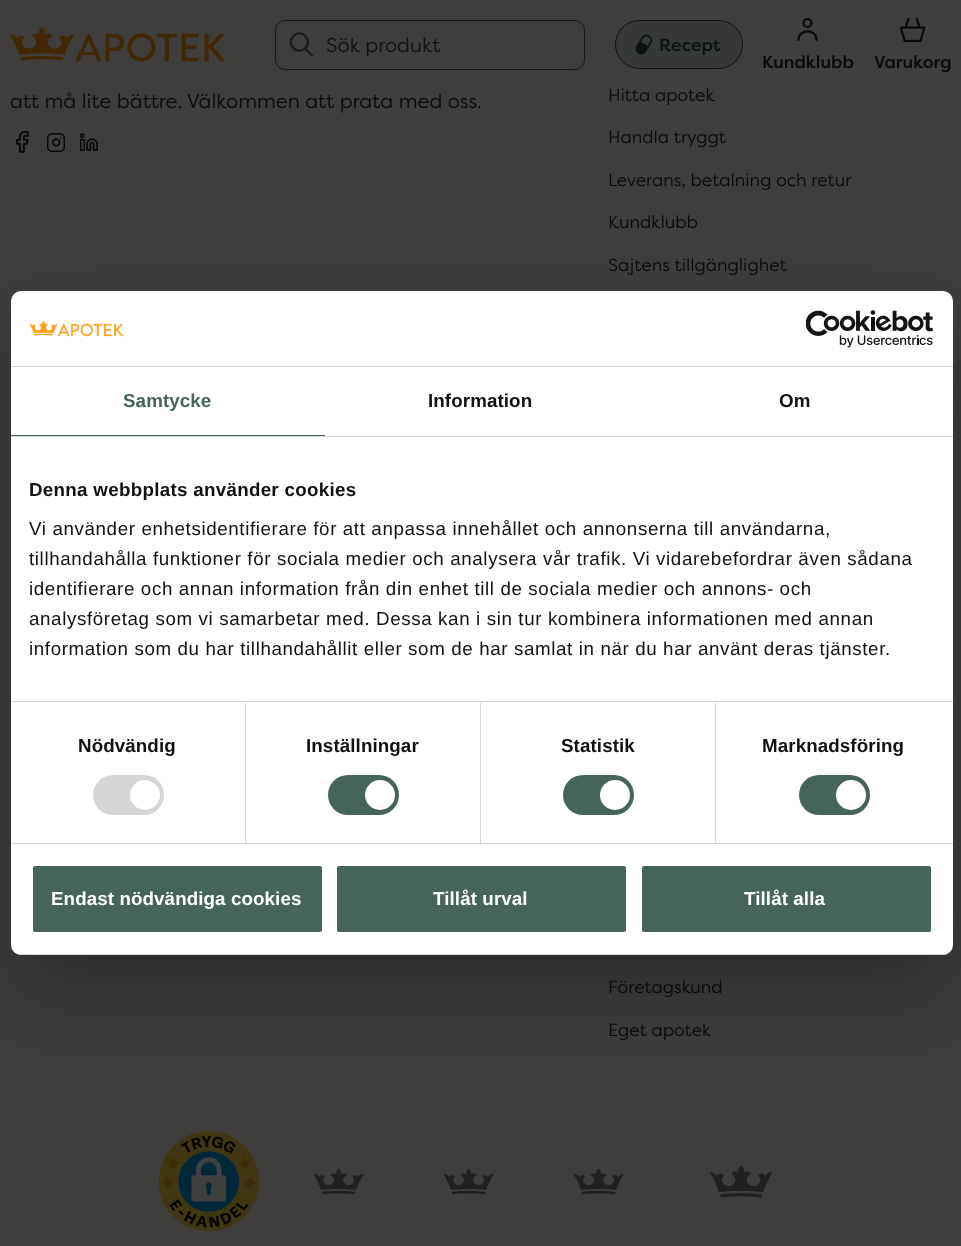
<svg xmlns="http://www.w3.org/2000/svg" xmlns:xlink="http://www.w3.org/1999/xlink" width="961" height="1246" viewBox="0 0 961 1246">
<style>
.cls-1{font:20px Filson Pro;fill:#131212}
.cls-2{font:500 17.5px Filson Pro;fill:#0d1311}
.cls-3{font:500 17.5px Filson Pro;fill:#0a0a0a}
.cls-4{font:20px Filson Pro;fill:#0a0a0a}
.cls-5{font:17.5px Filson Pro;fill:#0a0a0a}
.cls-6{font:bold 18.75px Liberation Sans;letter-spacing:0.1px;fill:#47645a}
.cls-7{font:bold 18.75px Liberation Sans;letter-spacing:0.1px;fill:#131212}
.cls-8{font:bold 18.75px Liberation Sans;letter-spacing:0.3px;fill:#131212}
.cls-9{font:18.75px Liberation Sans;letter-spacing:0.62px;fill:#131212}
.cls-10{font:bold 18.75px Liberation Sans;letter-spacing:0.1px;fill:#ffffff}
</style>
<defs>
<clipPath id="clip1"><rect x="11" y="291" width="942" height="664" rx="10"/></clipPath>
</defs>
<rect width="100%" height="100%" fill="#3f3e3d"/>
<image xlink:href="image0.png" x="10" y="28" width="215" height="34"/>
<rect fill="none" stroke="#1a1a1a" x="275.5" y="20.5" width="309" height="49" rx="9.5"/>
<path fill="none" stroke="#1a1a1a" stroke-width="2.2" stroke-linecap="round" stroke-linejoin="round" d="M305 48.5C313.5 41 301.5 27.5 293.5 36C285.5 44 297 55.5 305 48.5ZM305 48.5L312 55.5"/>
<rect fill="#353836" stroke="#0d1311" x="615.5" y="20.5" width="127" height="48" rx="24"/>
<image xlink:href="image1.png" x="635" y="34" width="18" height="21"/>
<path fill="none" stroke="#0a0a0a" stroke-width="2.2" stroke-linecap="round" d="M798.5 40C798.5 28.5 816.5 28.5 816.5 40"/>
<circle fill="none" stroke="#0a0a0a" stroke-width="2.2" cx="807.5" cy="23" r="4"/>
<image xlink:href="image2.png" x="899" y="17" width="27" height="26"/>
<image xlink:href="image3.png" x="15" y="131" width="14" height="22"/>
<image xlink:href="image4.png" x="47" y="133" width="18" height="19"/>
<image xlink:href="image5.png" x="79" y="133" width="19" height="18"/>
<image xlink:href="image6.png" x="158" y="1131" width="101" height="101"/>
<image xlink:href="image7.png" x="313" y="1168" width="51" height="27"/>
<image xlink:href="image7.png" x="443" y="1168" width="51" height="27"/>
<image xlink:href="image7.png" x="573" y="1168" width="51" height="27"/>
<image xlink:href="image8.png" x="710" y="1165" width="63" height="33"/>
<rect fill="#000000" fill-opacity="0.3" filter="blur(42.5px)" x="11" y="331" width="942" height="664" rx="10"/>
<rect fill="#ffffff" x="11" y="291" width="942" height="664" rx="10"/>
<rect fill="#d6d6d6" x="11" y="366" width="942" height="1"/>
<image xlink:href="image9.png" x="29" y="320" width="94" height="17"/>
<image xlink:href="image10.png" x="806" y="310" width="127" height="38"/>
<rect fill="#d6d6d6" x="11" y="436" width="942" height="1"/>
<rect fill="#47645a" x="11" y="435" width="314" height="1"/>
<rect fill="#d6d6d6" x="11" y="701" width="942" height="1"/>
<rect fill="#d6d6d6" x="11" y="843" width="942" height="1"/>
<rect fill="#d6d6d6" x="245" y="703" width="1" height="140"/>
<rect fill="#d6d6d6" x="93" y="775" width="71" height="40" rx="20"/>
<circle fill="#ffffff" cx="145" cy="795" r="15"/>
<rect fill="#d6d6d6" x="480" y="703" width="1" height="140"/>
<rect fill="#47645a" x="328" y="775" width="71" height="40" rx="20"/>
<circle fill="#ffffff" cx="380" cy="795" r="15"/>
<rect fill="#d6d6d6" x="715" y="703" width="1" height="140"/>
<rect fill="#47645a" x="563" y="775" width="71" height="40" rx="20"/>
<circle fill="#ffffff" cx="615" cy="795" r="15"/>
<rect fill="#47645a" x="799" y="775" width="71" height="40" rx="20"/>
<circle fill="#ffffff" cx="851" cy="795" r="15"/>
<g clip-path="url(#clip1)">
<rect fill="#d6d6d6" x="11" y="954" width="942" height="1"/>
</g>
<rect fill="#47645a" stroke="#ffffff" stroke-width="3" x="31.5" y="864.5" width="292" height="69" rx="3.5"/>
<rect fill="#47645a" stroke="#ffffff" stroke-width="3" x="335.5" y="864.5" width="292" height="69" rx="3.5"/>
<rect fill="#47645a" stroke="#ffffff" stroke-width="3" x="640.5" y="864.5" width="292" height="69" rx="3.5"/>
<text class="cls-1" x="326" y="52">Sök produkt</text>
<text class="cls-2" x="659" y="51">Recept</text>
<text class="cls-3" x="762" y="68">Kundklubb</text>
<text class="cls-3" x="874" y="68">Varukorg</text>
<text class="cls-4" x="10" y="108">att må lite bättre. Välkommen att prata med oss.</text>
<text class="cls-5" x="608" y="101">Hitta apotek</text>
<text class="cls-5" x="608" y="143">Handla tryggt</text>
<text class="cls-5" x="608" y="186">Leverans, betalning och retur</text>
<text class="cls-5" x="608" y="228">Kundklubb</text>
<text class="cls-5" x="608" y="271">Sajtens tillgänglighet</text>
<text class="cls-5" x="608" y="993">Företagskund</text>
<text class="cls-5" x="608" y="1036">Eget apotek</text>
<text class="cls-6" x="123" y="407">Samtycke</text>
<text class="cls-7" x="428" y="407">Information</text>
<text class="cls-7" x="779" y="407">Om</text>
<text class="cls-8" x="29" y="496">Denna webbplats använder cookies</text>
<text class="cls-9"><tspan x="29" y="535">Vi använder enhetsidentifierare för att anpassa innehållet och annonserna till användarna,</tspan><tspan x="29" y="565">tillhandahålla funktioner för sociala medier och analysera vår trafik. Vi vidarebefordrar även sådana</tspan><tspan x="29" y="595">identifierare och annan information från din enhet till de sociala medier och annons- och</tspan><tspan x="29" y="625">analysföretag som vi samarbetar med. Dessa kan i sin tur kombinera informationen med annan</tspan><tspan x="29" y="655">information som du har tillhandahållit eller som de har samlat in när du har använt deras tjänster.</tspan></text>
<text class="cls-7" x="78" y="752">Nödvändig</text>
<text class="cls-7" x="306" y="752">Inställningar</text>
<text class="cls-7" x="561" y="752">Statistik</text>
<text class="cls-7" x="762" y="752">Marknadsföring</text>
<text class="cls-10" x="51" y="905">Endast nödvändiga cookies</text>
<text class="cls-10" x="433" y="905">Tillåt urval</text>
<text class="cls-10" x="744" y="905">Tillåt alla</text>
</svg>
